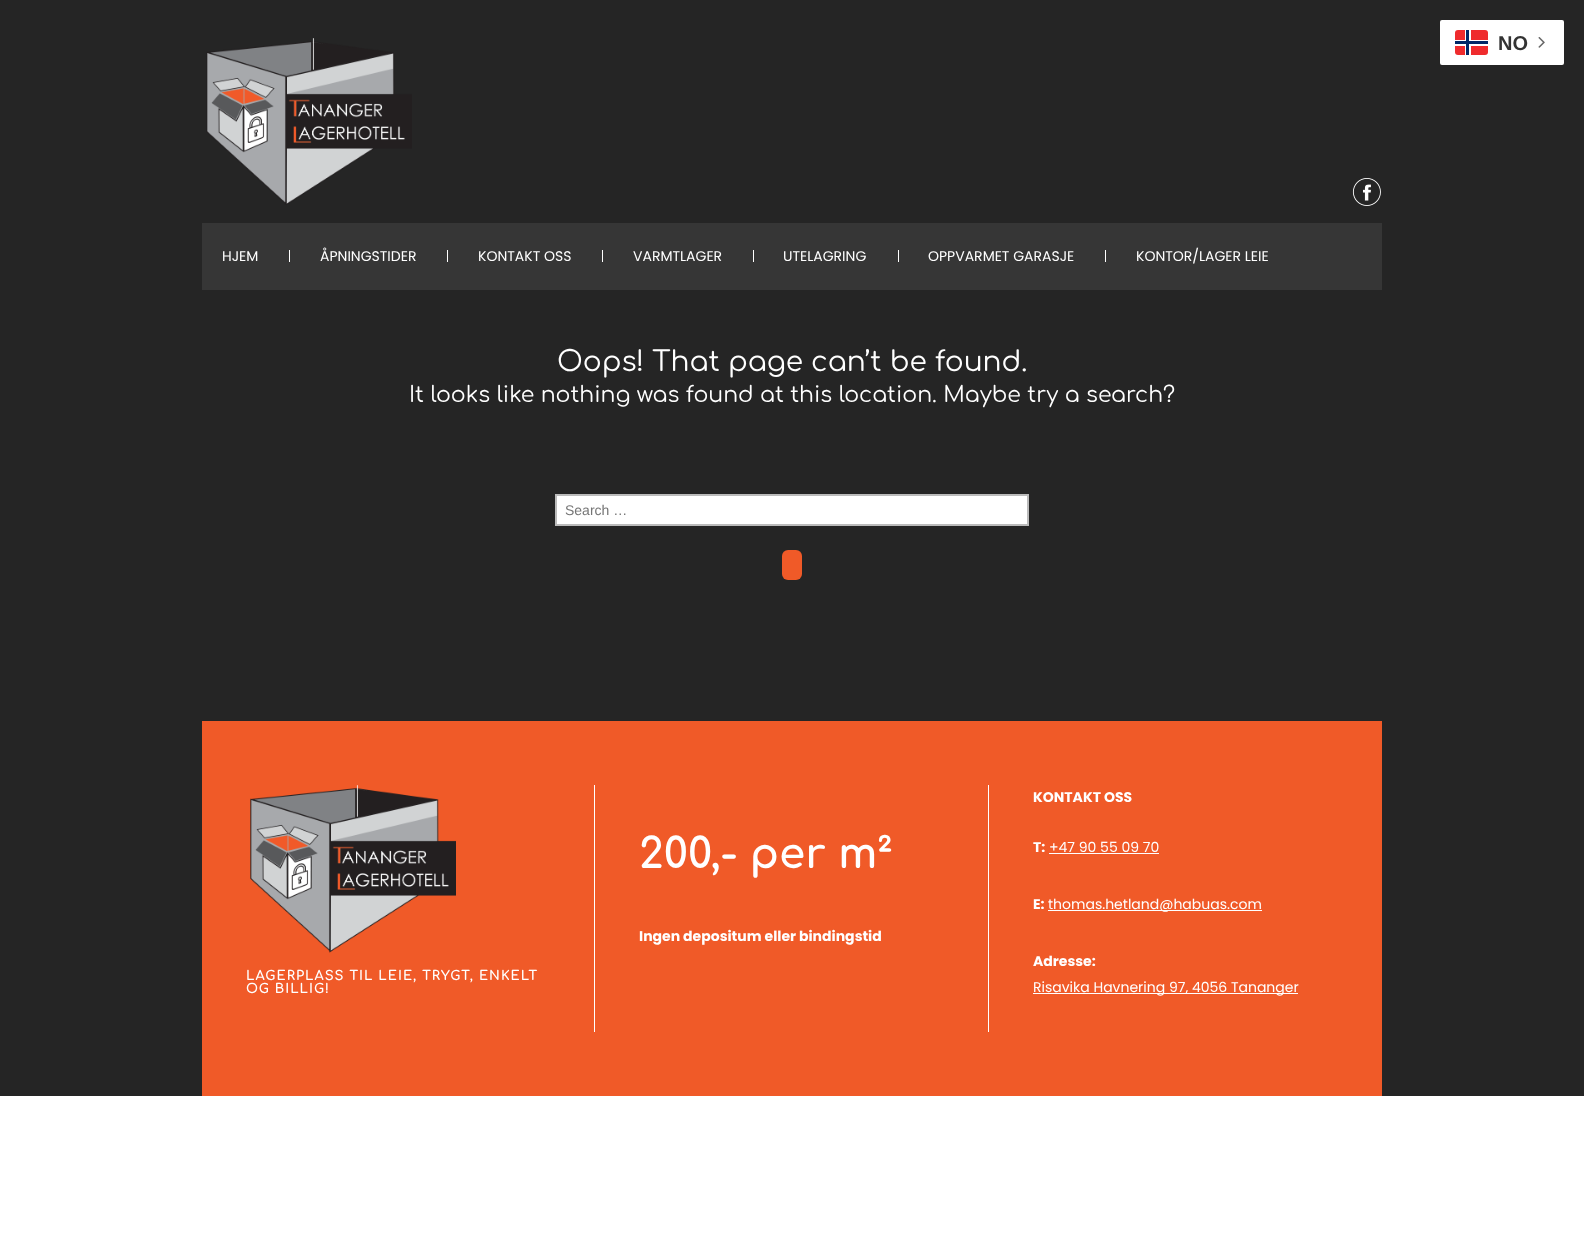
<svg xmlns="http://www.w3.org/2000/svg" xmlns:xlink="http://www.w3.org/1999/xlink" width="1584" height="1248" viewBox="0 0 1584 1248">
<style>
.cls-1{font:bold 20px Liberation Sans;fill:#333333}
.cls-2{font:14px Poppins;fill:#ffffff}
.cls-3{font:28px Comfortaa;fill:#ffffff}
.cls-4{font:22px Comfortaa;fill:#ffffff}
.cls-5{font:14px Liberation Sans;fill:#757575}
.cls-6{font:bold 42px Comfortaa;fill:#ffffff}
.cls-7{font:bold 14px Poppins;fill:#ffffff}
.cls-8{font:bold 13px Comfortaa;letter-spacing:1.05px;fill:#ffffff}
</style>
<rect width="100%" height="100%" fill="#ffffff"/>
<rect fill="#252525" x="0" y="0" width="1584" height="1096"/>
<rect fill="#ffffff" x="1440" y="20" width="124" height="45" rx="2"/>
<rect fill="#ef2b2d" x="1455" y="30" width="33" height="25" rx="3"/>
<rect fill="#ffffff" x="1465" y="30" width="6" height="25"/>
<rect fill="#ffffff" x="1455" y="40" width="33" height="6"/>
<rect fill="#002868" x="1466" y="30" width="3" height="25"/>
<rect fill="#002868" x="1455" y="41" width="33" height="3"/>
<image xlink:href="image0.png" x="1538" y="37" width="7" height="11"/>
<image xlink:href="image1.png" x="206" y="38" width="206" height="167"/>
<image xlink:href="image2.png" x="1352" y="178" width="29" height="28"/>
<rect fill="#363636" x="202" y="223" width="1180" height="67"/>
<rect fill="#ffffff" x="289" y="250" width="1" height="12"/>
<rect fill="#ffffff" x="447" y="250" width="1" height="12"/>
<rect fill="#ffffff" x="602" y="250" width="1" height="12"/>
<rect fill="#ffffff" x="753" y="250" width="1" height="12"/>
<rect fill="#ffffff" x="898" y="250" width="1" height="12"/>
<rect fill="#ffffff" x="1105" y="250" width="1" height="12"/>
<rect fill="#ffffff" stroke="#bbbbbb" stroke-width="2" x="556" y="495" width="472" height="30"/>
<rect fill="#f05a28" x="782" y="550" width="20" height="30" rx="6"/>
<rect fill="#f05a28" x="202" y="721" width="1180" height="375"/>
<rect fill="#ffffff" x="988" y="785" width="1" height="247"/>
<rect fill="#ffffff" x="1049" y="853" width="110" height="1"/>
<rect fill="#ffffff" x="1048" y="910" width="214" height="1"/>
<rect fill="#ffffff" x="1033" y="993" width="265" height="1"/>
<rect fill="#ffffff" x="594" y="785" width="1" height="247"/>
<image xlink:href="image3.png" x="250" y="785" width="206" height="168"/>
<text class="cls-1" x="1498" y="50">NO</text>
<text class="cls-2" x="222" y="261">HJEM</text>
<text class="cls-2" x="320" y="261">ÅPNINGSTIDER</text>
<text class="cls-2" x="478" y="261">KONTAKT OSS</text>
<text class="cls-2" x="633" y="261">VARMTLAGER</text>
<text class="cls-2" x="783" y="261">UTELAGRING</text>
<text class="cls-2" x="928" y="261">OPPVARMET GARASJE</text>
<text class="cls-2" x="1136" y="261">KONTOR/LAGER LEIE</text>
<text class="cls-3" x="557" y="371">Oops! That page can’t be found.</text>
<text class="cls-4" x="409" y="402">It looks like nothing was found at this location. Maybe try a search?</text>
<text class="cls-5" x="565" y="515">Search …</text>
<text class="cls-6" x="639" y="868">200,- per m²</text>
<text class="cls-7" x="639" y="941">Ingen depositum eller bindingstid</text>
<text class="cls-7" x="1033" y="802">KONTAKT OSS</text>
<text class="cls-7" x="1033" y="852">T:</text>
<text class="cls-2" x="1049" y="852">+47 90 55 09 70</text>
<text class="cls-7" x="1033" y="909">E:</text>
<text class="cls-2" x="1048" y="909">thomas.hetland@habuas.com</text>
<text class="cls-7" x="1033" y="966">Adresse:</text>
<text class="cls-2" x="1033" y="992">Risavika Havnering 97, 4056 Tananger</text>
<text class="cls-8"><tspan x="246" y="980">LAGERPLASS TIL LEIE, TRYGT, ENKELT</tspan><tspan x="246" y="993">OG BILLIG!</tspan></text>
</svg>
